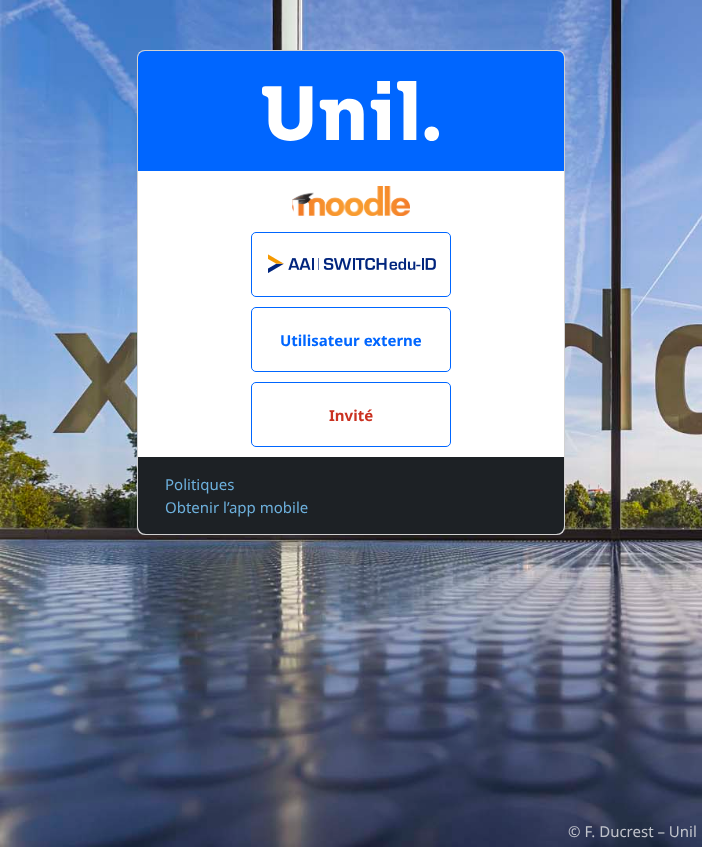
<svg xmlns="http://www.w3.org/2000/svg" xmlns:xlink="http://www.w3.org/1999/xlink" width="702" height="847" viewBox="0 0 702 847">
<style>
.cls-1{font:bold 15px Noto Sans;fill:#0066ff}
.cls-2{font:bold 15px Noto Sans;fill:#ca3120}
.cls-3{font:15px Noto Sans;fill:#6db0dc}
.cls-4{font:15px Noto Sans;fill:#c0c3cb}
</style>
<rect width="100%" height="100%" fill="#ffffff"/>
<image xlink:href="image0.png" x="0" y="0" width="702" height="847"/>
<rect fill="#ffffff" x="137" y="50" width="428" height="485" rx="8"/>
<rect fill="none" stroke="#000000" stroke-opacity="0.18" x="137.5" y="50.5" width="427" height="484" rx="7.5"/>
<path fill="#0066ff" d="M145 51H557C561 51 564 54 564 58V171H138V58C138 54 141 51 145 51Z"/>
<image xlink:href="image1.png" x="262" y="81" width="177" height="60"/>
<image xlink:href="image2.png" x="292" y="186" width="118" height="30"/>
<rect fill="none" stroke="#0066ff" x="251.5" y="232.5" width="199" height="64" rx="4.5"/>
<image xlink:href="image3.png" x="268" y="254" width="168" height="19"/>
<rect fill="none" stroke="#0066ff" x="251.5" y="307.5" width="199" height="64" rx="4.5"/>
<rect fill="none" stroke="#0066ff" x="251.5" y="382.5" width="199" height="64" rx="4.5"/>
<path fill="#1d2125" d="M138 457H564V526C564 530.5 560.5 534 556 534H146C141.5 534 138 530.5 138 526Z"/>
<text class="cls-1" x="280" y="346">Utilisateur externe</text>
<text class="cls-2" x="329" y="421">Invité</text>
<text class="cls-3"><tspan x="165" y="490">Politiques</tspan><tspan x="165" y="513">Obtenir l’app mobile</tspan></text>
<text class="cls-4" x="568" y="837">© F. Ducrest – Unil</text>
</svg>
